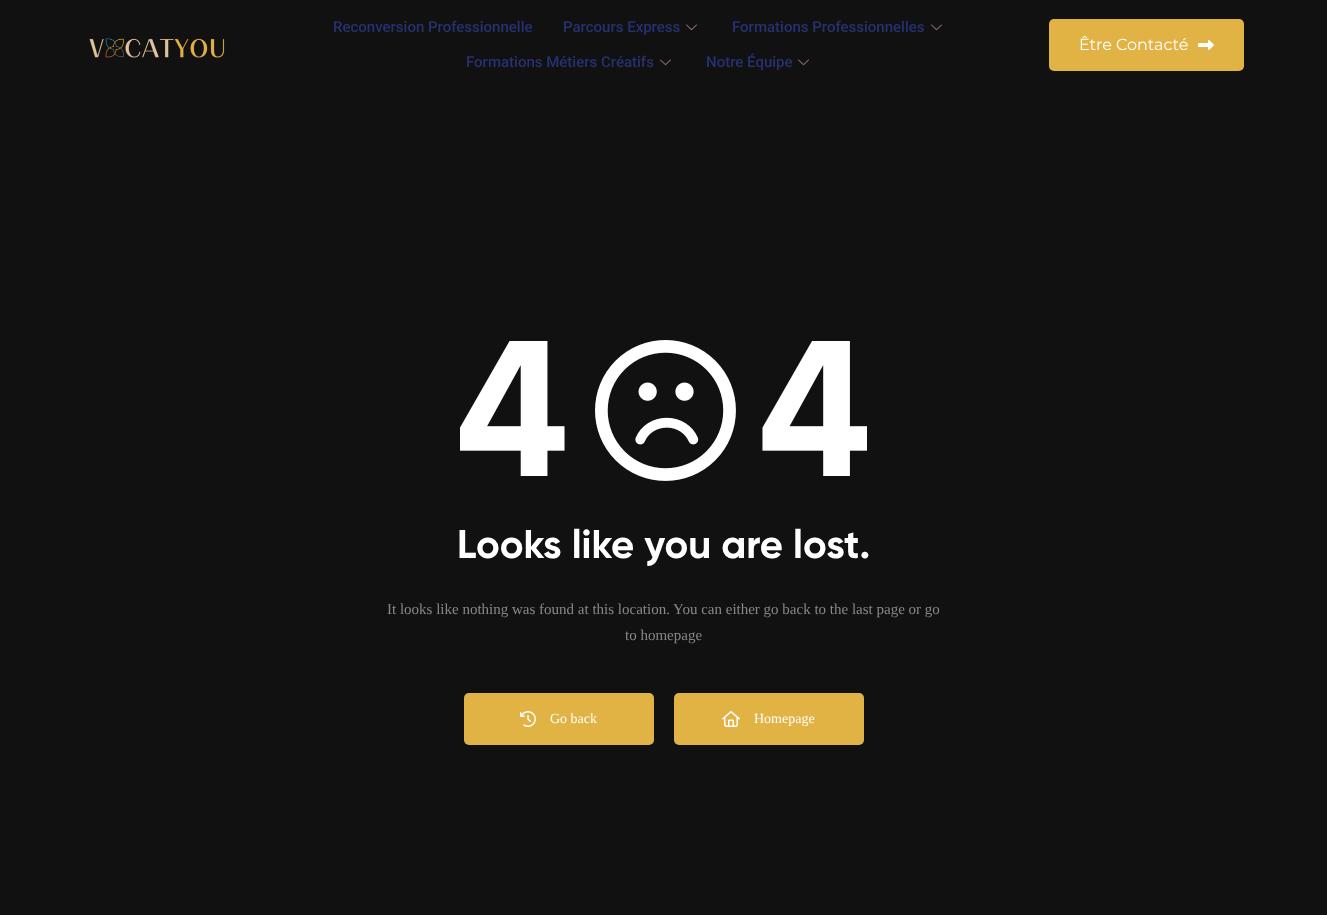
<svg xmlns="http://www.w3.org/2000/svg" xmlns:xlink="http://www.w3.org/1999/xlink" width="1327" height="915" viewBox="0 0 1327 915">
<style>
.cls-1{font:500 15px Roboto;fill:#273171}
.cls-2{font:16px Montserrat;fill:#ffffff}
.cls-3{font:bold 40px Gilroy;fill:#ffffff}
.cls-4{font:15px Liberation Serif;fill:#888888}
.cls-5{font:14px Liberation Serif;fill:#ffffff}
</style>
<rect width="100%" height="100%" fill="#111111"/>
<image xlink:href="image0.png" x="89" y="38" width="136" height="20"/>
<image xlink:href="image1.png" x="686" y="24" width="11" height="7"/>
<image xlink:href="image1.png" x="931" y="24" width="11" height="7"/>
<image xlink:href="image1.png" x="660" y="59" width="11" height="7"/>
<image xlink:href="image1.png" x="798" y="59" width="11" height="7"/>
<rect fill="#e1b344" x="1049" y="19" width="195" height="52" rx="5"/>
<image xlink:href="image2.png" x="1198" y="40" width="16" height="10"/>
<image xlink:href="image3.png" x="460" y="340" width="407" height="141"/>
<rect fill="#e1b344" x="464" y="693" width="190" height="52" rx="5"/>
<image xlink:href="image4.png" x="520" y="711" width="16" height="16"/>
<rect fill="#e1b344" x="674" y="693" width="190" height="52" rx="5"/>
<image xlink:href="image5.png" x="722" y="711" width="18" height="16"/>
<text class="cls-1" x="333" y="32">Reconversion Professionnelle</text>
<text class="cls-1" x="563" y="32">Parcours Express</text>
<text class="cls-1" x="732" y="32">Formations Professionnelles</text>
<text class="cls-1" x="466" y="67">Formations Métiers Créatifs</text>
<text class="cls-1" x="706" y="67">Notre Équipe</text>
<text class="cls-2" x="1079" y="50">Être Contacté</text>
<text class="cls-3" x="457" y="558">Looks like you are lost.</text>
<text class="cls-4" x="387" y="614">It looks like nothing was found at this location. You can either go back to the last page or go</text>
<text class="cls-4" x="625" y="640">to homepage</text>
<text class="cls-5" x="550" y="723">Go back</text>
<text class="cls-5" x="754" y="723">Homepage</text>
</svg>
